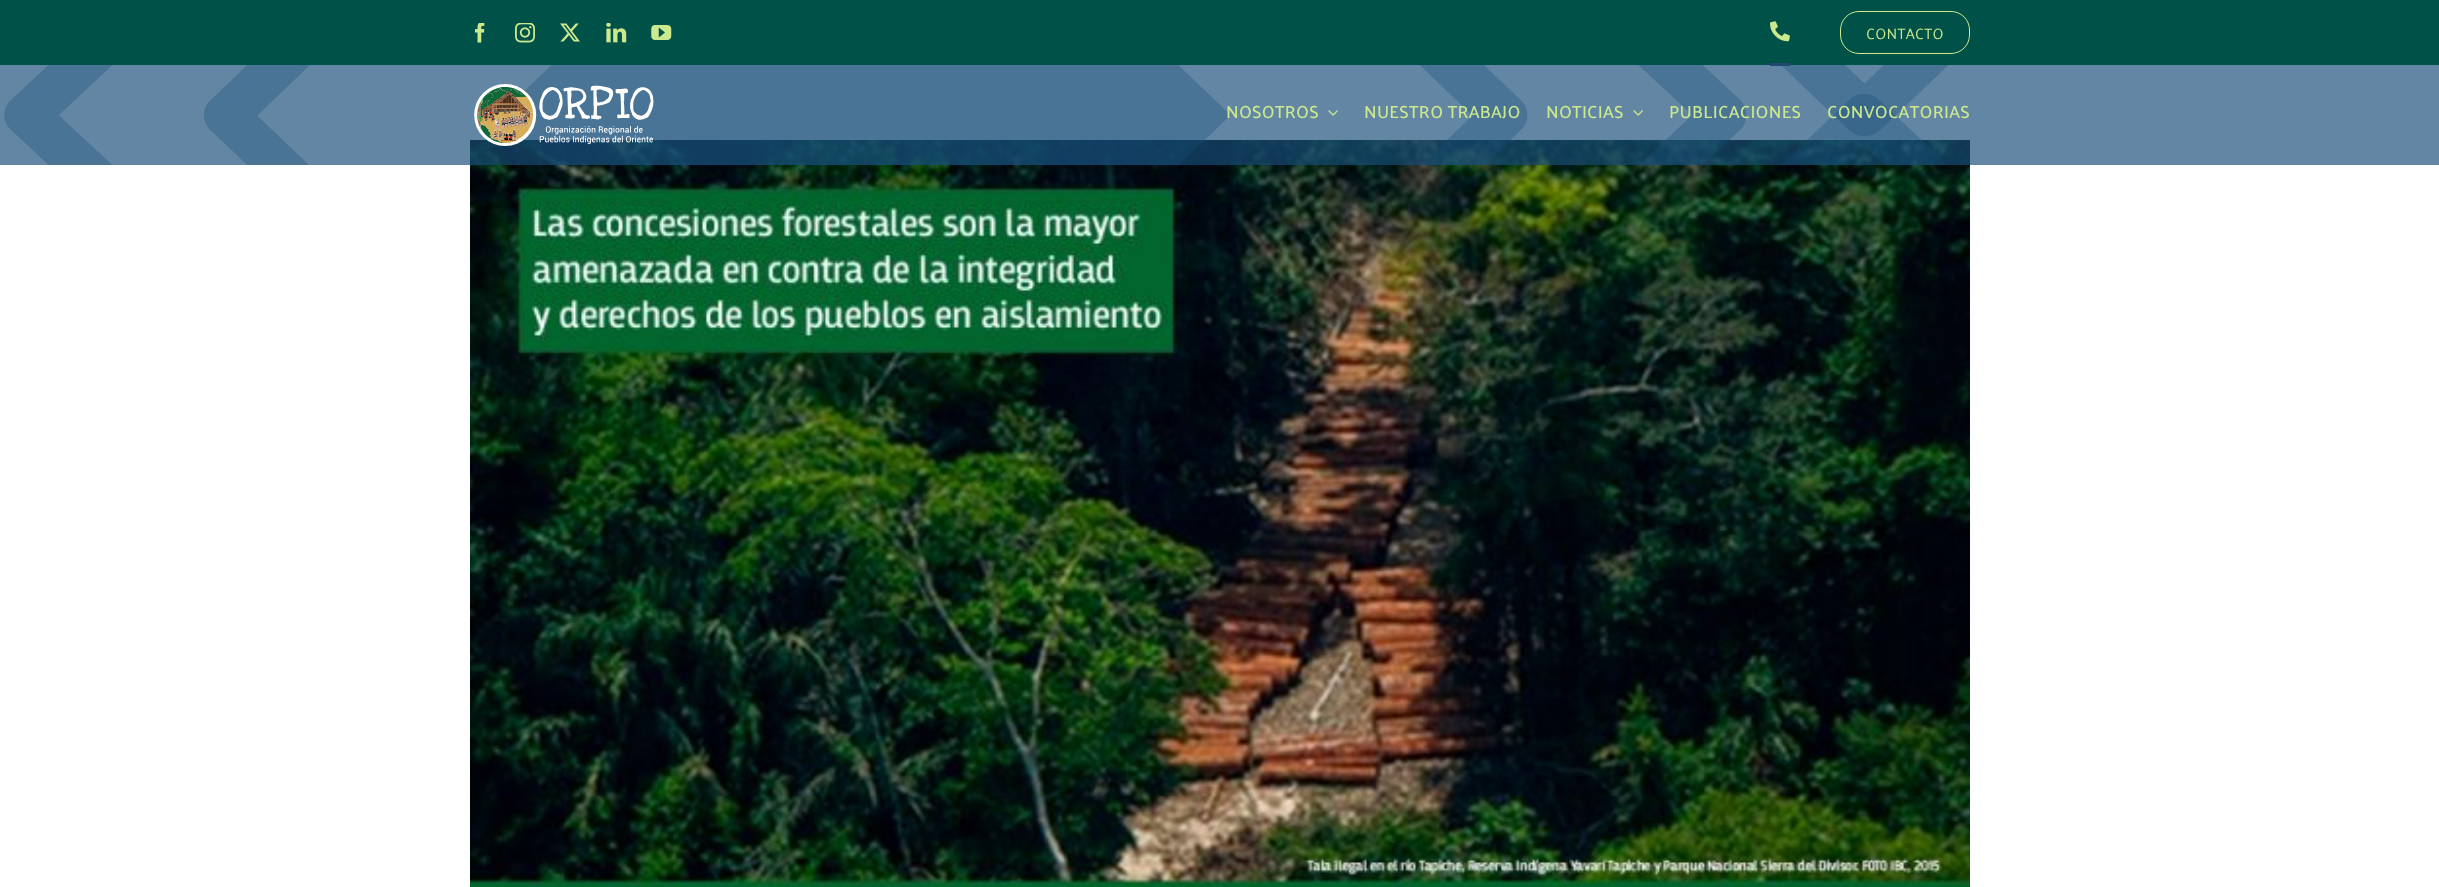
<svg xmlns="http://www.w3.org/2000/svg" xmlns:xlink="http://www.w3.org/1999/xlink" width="2439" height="887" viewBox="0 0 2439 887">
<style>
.cls-1{font:15px Palanquin;letter-spacing:0.25px;fill:#cce98d}
.cls-2{font:500 17.5px Palanquin;letter-spacing:0.25px;fill:#cce98d}
</style>
<rect width="100%" height="100%" fill="#ffffff"/>
<rect fill="#005148" x="0" y="0" width="2439" height="65"/>
<image xlink:href="image0.png" x="475" y="23" width="10" height="20"/>
<image xlink:href="image1.png" x="515" y="23" width="20" height="20"/>
<image xlink:href="image2.png" x="560" y="23" width="20" height="19"/>
<image xlink:href="image3.png" x="606" y="23" width="21" height="20"/>
<image xlink:href="image4.png" x="651" y="25" width="21" height="15"/>
<image xlink:href="image5.png" x="1770" y="21" width="20" height="21"/>
<rect fill="#284672" x="1770" y="63" width="20" height="3"/>
<rect fill="none" stroke="#cce98d" x="1840.5" y="11.5" width="129" height="42" rx="18.5"/>
<image xlink:href="image9.png" x="470" y="140" width="1500" height="747"/>
<rect fill="#174c78" fill-opacity="0.68" x="0" y="65" width="2439" height="100"/>
<image xlink:href="image6.png" x="4" y="65" width="1944" height="100"/>
<image xlink:href="image7.png" x="474" y="84" width="180" height="62"/>
<image xlink:href="image8.png" x="1328" y="110" width="10" height="6"/>
<image xlink:href="image8.png" x="1633" y="110" width="10" height="6"/>
<text class="cls-1" x="1866" y="39">CONTACTO</text>
<text class="cls-2" x="1226" y="118">NOSOTROS</text>
<text class="cls-2" x="1364" y="118">NUESTRO TRABAJO</text>
<text class="cls-2" x="1546" y="118">NOTICIAS</text>
<text class="cls-2" x="1669" y="118">PUBLICACIONES</text>
<text class="cls-2" x="1827" y="118">CONVOCATORIAS</text>
</svg>
